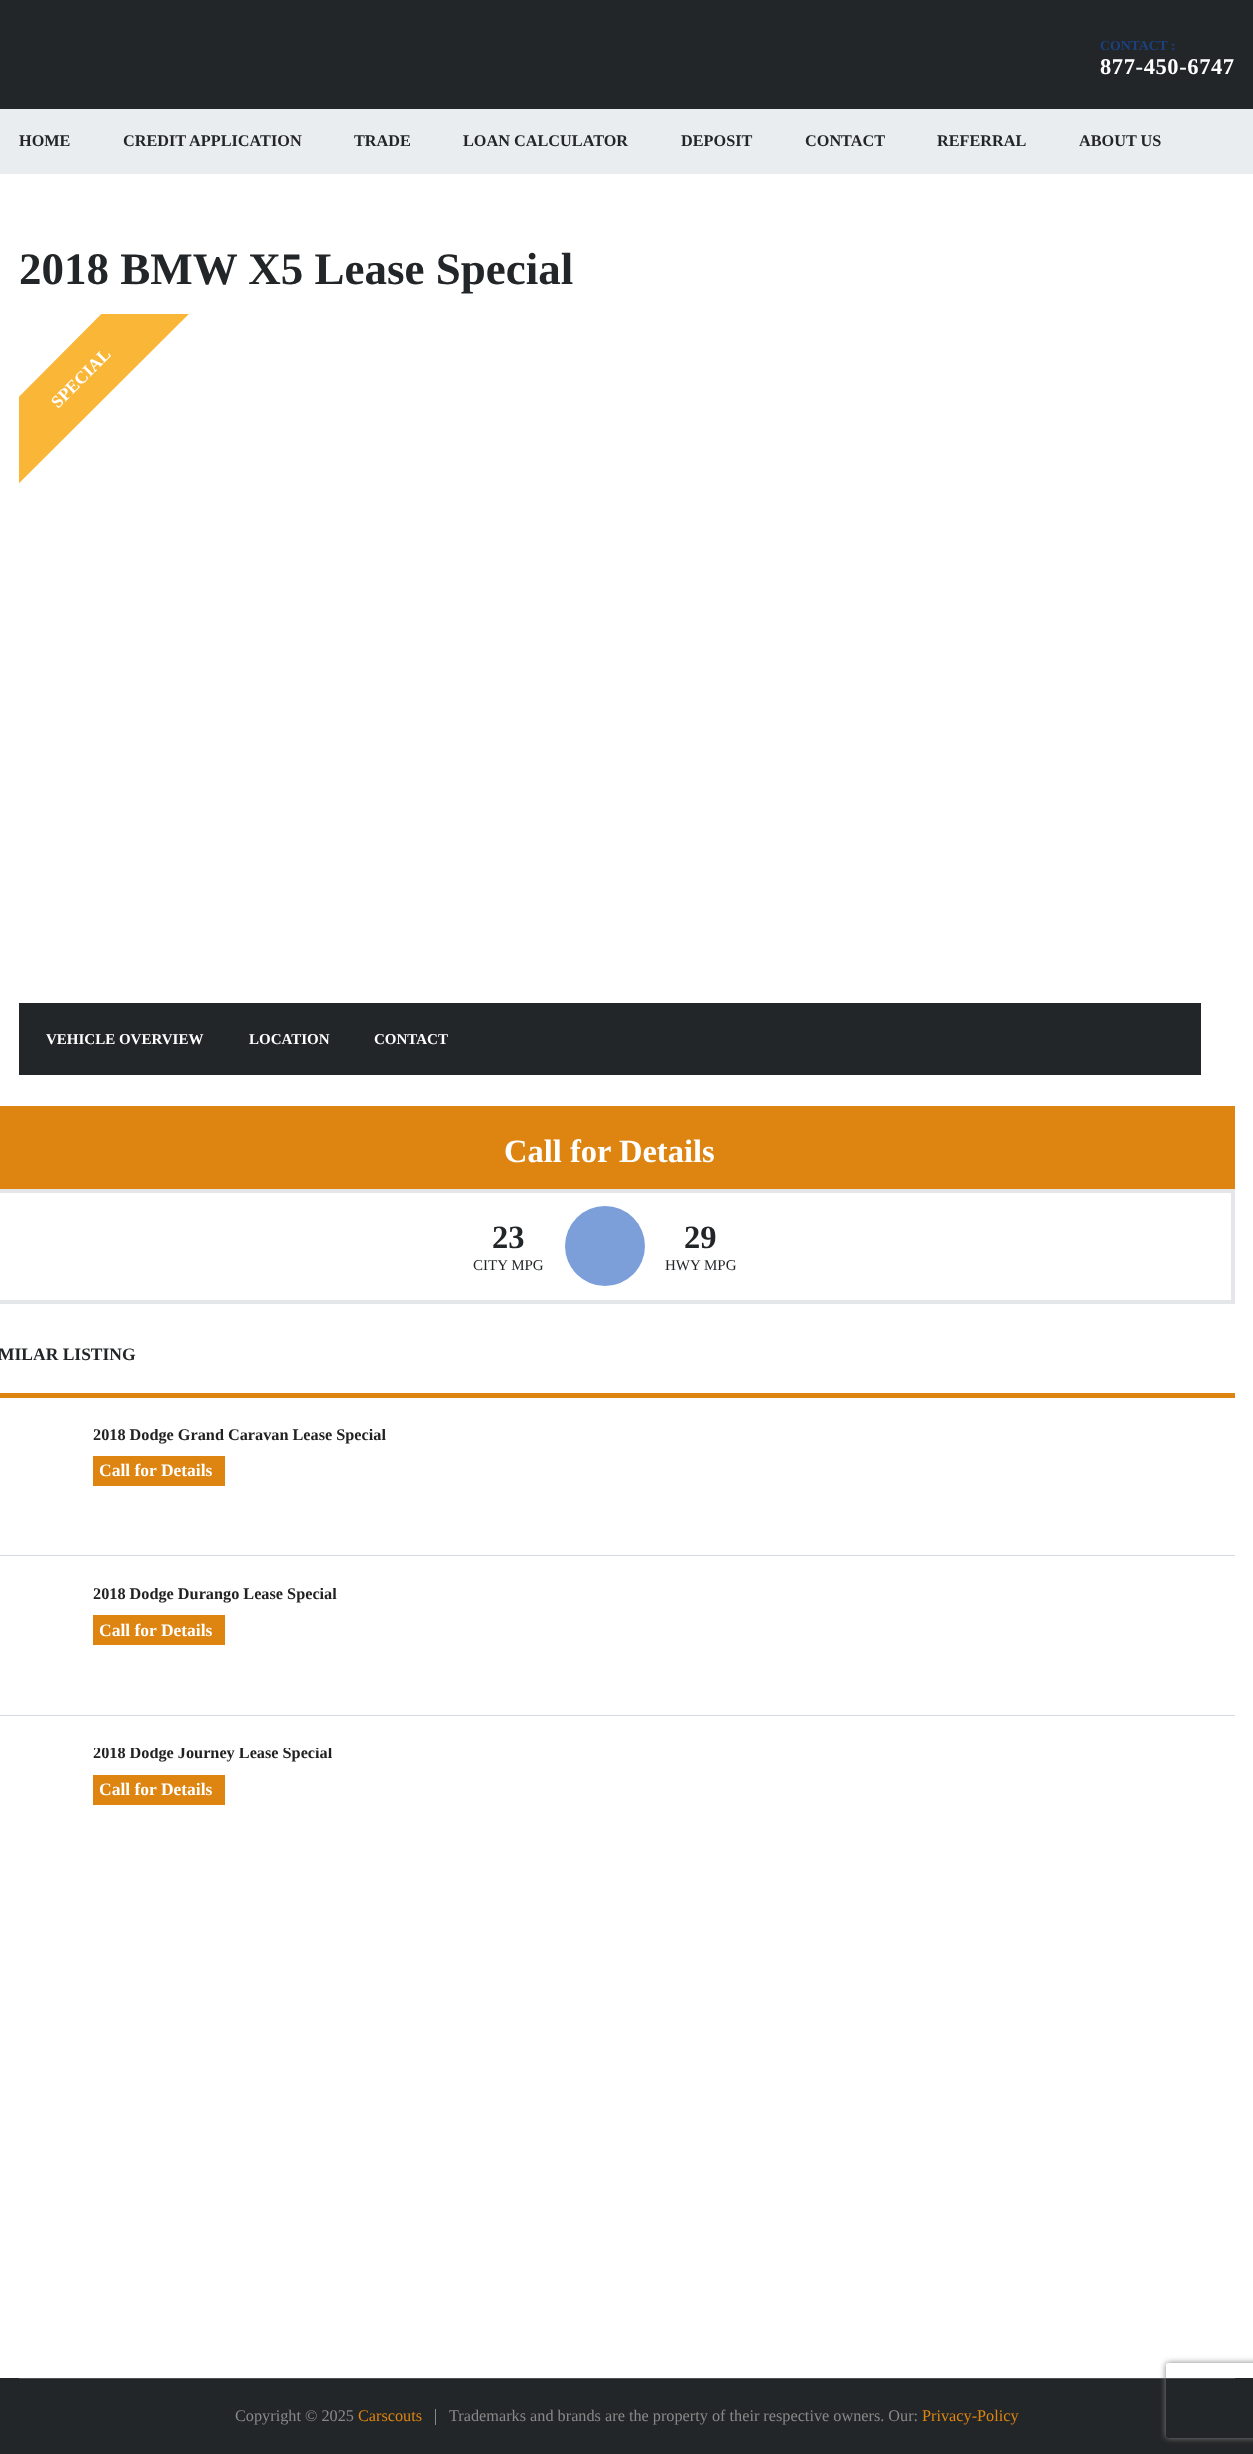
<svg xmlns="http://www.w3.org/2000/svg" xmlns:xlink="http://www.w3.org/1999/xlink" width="1253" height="2454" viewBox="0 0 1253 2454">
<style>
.cls-1{font:bold 13.75px Liberation Serif;fill:#1b417f}
.cls-2{font:bold 22.5px Liberation Serif;letter-spacing:0.6px;fill:#ffffff}
.cls-3{font:bold 16.25px Liberation Serif;fill:#232628}
.cls-4{font:bold 45px Liberation Serif;fill:#232628}
.cls-5{font:bold 17.5px Liberation Serif;fill:#ffffff}
.cls-6{font:bold 15px Liberation Serif;fill:#ffffff}
.cls-7{font:bold 32.5px Liberation Serif;fill:#ffffff}
.cls-8{font:bold 32.5px Liberation Serif;fill:#232628}
.cls-9{font:15px Liberation Serif;fill:#232628}
.cls-10{font:bold 17.5px Liberation Serif;fill:#232628}
.cls-11{font:bold 16.25px Liberation Serif;fill:#222222}
.cls-12{font:16.25px Liberation Serif;fill:#888888}
.cls-13{font:16.25px Liberation Serif;fill:#dd8411}
</style>
<defs>
<clipPath id="clip1"><rect x="19" y="314" width="1182" height="632"/></clipPath>
<clipPath id="clip2"><path d="M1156 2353H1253V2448H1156ZM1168.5 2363H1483.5C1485 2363 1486 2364 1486 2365.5V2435.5C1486 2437 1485 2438 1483.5 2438H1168.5C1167 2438 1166 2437 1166 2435.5V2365.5C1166 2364 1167 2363 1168.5 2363Z" clip-rule="evenodd"/></clipPath>
<clipPath id="clip3"><rect x="93" y="1429" width="1142" height="57"/></clipPath>
<clipPath id="clip4"><rect x="93" y="1588" width="1142" height="57"/></clipPath>
<clipPath id="clip5"><rect x="93" y="1748" width="1142" height="57"/></clipPath>
</defs>
<rect width="100%" height="100%" fill="#ffffff"/>
<rect fill="#232628" x="0" y="0" width="1253" height="109"/>
<rect fill="#eaedf0" x="0" y="109" width="1253" height="65"/>
<g clip-path="url(#clip1)">
<path fill="#fab637" d="M-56 472L174 241L218 285L-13 515Z"/>
</g>
<rect fill="#232628" x="19" y="1003" width="1182" height="72"/>
<rect fill="#dd8411" x="0" y="1106" width="1235" height="83"/>
<rect fill="none" stroke="#e4e6ea" stroke-width="4" x="-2" y="1191" width="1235" height="111"/>
<circle fill="#7c9fda" cx="605" cy="1246" r="40"/>
<rect fill="#dd8411" x="0" y="1393" width="1235" height="5"/>
<rect fill="#dd8411" x="93" y="1456" width="132" height="30"/>
<rect fill="#d5d9e0" x="0" y="1555" width="1235" height="1"/>
<rect fill="#dd8411" x="93" y="1615" width="132" height="30"/>
<rect fill="#d5d9e0" x="0" y="1715" width="1235" height="1"/>
<rect fill="#dd8411" x="93" y="1775" width="132" height="30"/>
<rect fill="#232628" x="0" y="2378" width="1253" height="76"/>
<rect fill="#4f5153" x="19" y="2378" width="1216" height="1"/>
<rect fill="#888888" x="435" y="2409" width="1" height="16"/>
<g clip-path="url(#clip2)">
<rect fill="#808080" filter="blur(3px)" x="1166" y="2363" width="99" height="75" rx="2.5"/>
</g>
<text class="cls-1" x="1100" y="50">CONTACT :</text>
<text class="cls-2" x="1100" y="74">877-450-6747</text>
<text class="cls-3" x="19" y="146">HOME</text>
<text class="cls-3" x="123" y="146">CREDIT APPLICATION</text>
<text class="cls-3" x="354" y="146">TRADE</text>
<text class="cls-3" x="463" y="146">LOAN CALCULATOR</text>
<text class="cls-3" x="681" y="146">DEPOSIT</text>
<text class="cls-3" x="805" y="146">CONTACT</text>
<text class="cls-3" x="937" y="146">REFERRAL</text>
<text class="cls-3" x="1079" y="146">ABOUT US</text>
<text class="cls-4" x="19" y="284">2018 BMW X5 Lease Special</text>
<text class="cls-5" x="58" y="409" transform="rotate(-45 58 409)">SPECIAL</text>
<text class="cls-6" x="46" y="1044">VEHICLE OVERVIEW</text>
<text class="cls-6" x="249" y="1044">LOCATION</text>
<text class="cls-6" x="374" y="1044">CONTACT</text>
<text class="cls-7" x="504" y="1162">Call for Details</text>
<text class="cls-8" x="492" y="1248">23</text>
<text class="cls-9" x="473" y="1270">CITY MPG</text>
<text class="cls-8" x="684" y="1248">29</text>
<text class="cls-9" x="665" y="1270">HWY MPG</text>
<text class="cls-10" x="-2" y="1360">MILAR LISTING</text>
<g clip-path="url(#clip3)">
<text class="cls-11" x="93" y="1440">2018 Dodge Grand Caravan Lease Special</text>
</g>
<text class="cls-5" x="99" y="1476">Call for Details</text>
<g clip-path="url(#clip4)">
<text class="cls-11" x="93" y="1599">2018 Dodge Durango Lease Special</text>
</g>
<text class="cls-5" x="99" y="1636">Call for Details</text>
<g clip-path="url(#clip5)">
<text class="cls-11" x="93" y="1758">2018 Dodge Journey Lease Special</text>
</g>
<text class="cls-5" x="99" y="1795">Call for Details</text>
<text class="cls-12" x="235" y="2421">Copyright © 2025</text>
<text class="cls-13" x="358" y="2421">Carscouts</text>
<text class="cls-12" x="449" y="2421">Trademarks and brands are the property of their respective owners. Our:</text>
<text class="cls-13" x="922" y="2421">Privacy-Policy</text>
</svg>
